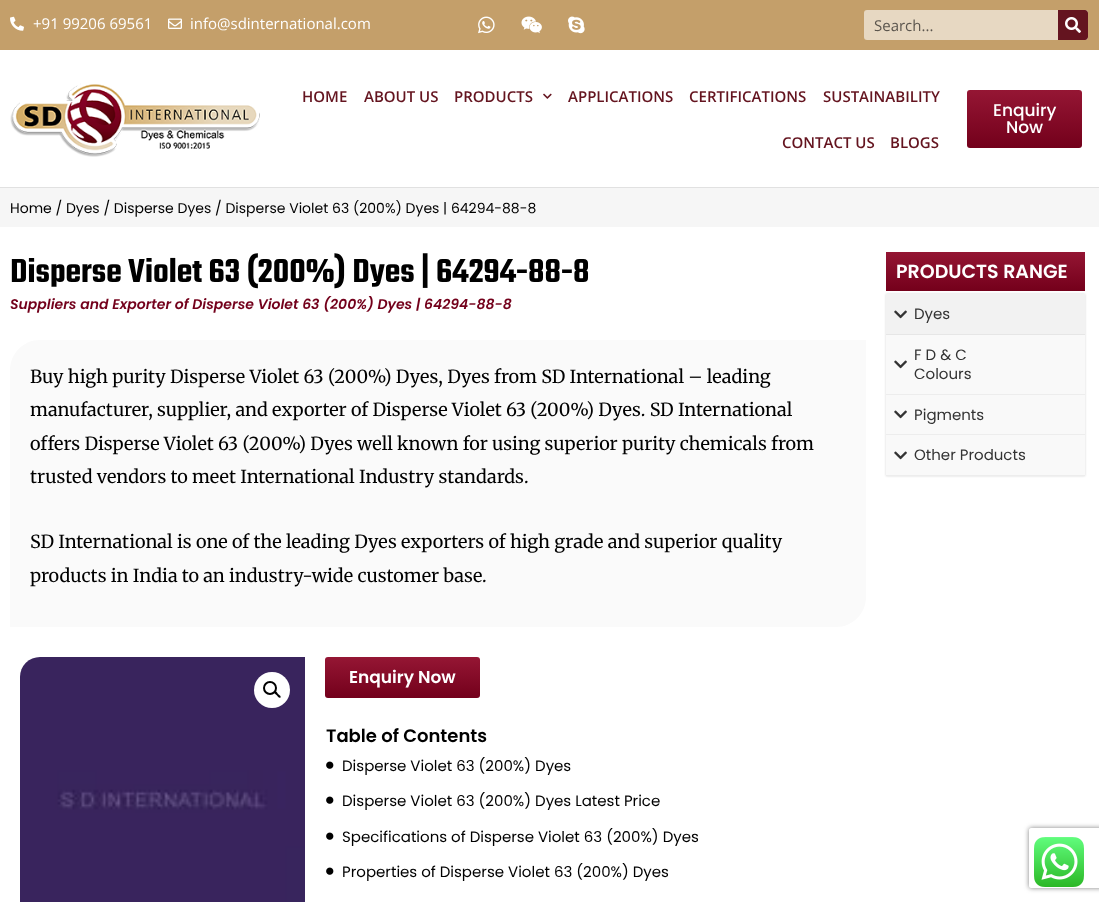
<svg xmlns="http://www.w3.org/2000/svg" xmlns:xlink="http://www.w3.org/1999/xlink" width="1099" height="902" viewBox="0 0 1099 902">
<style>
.cls-1{font:15px Open Sans;fill:#ffffff}
.cls-2{font:15px Open Sans;fill:#5c564e}
.cls-3{font:600 15px Open Sans;fill:#64141f}
.cls-4{font:500 17px Poppins;fill:#ffffff}
.cls-5{font:14px Poppins;fill:#000000}
.cls-6{font:600 36px Teko;fill:#000000}
.cls-7{font:italic 600 14px Poppins;fill:#73001b}
.cls-8{font:18px Merriweather;fill:#000000}
.cls-9{font:600 17px Poppins;fill:#ffffff}
.cls-10{font:600 18px Poppins;fill:#000000}
.cls-11{font:15px Poppins;fill:#000000}
.cls-12{font:600 19px Poppins;fill:#ffffff}
.cls-13{font:15px Poppins;fill:#333333}
</style>
<defs>
<linearGradient id="g1" gradientUnits="userSpaceOnUse" x1="1025" y1="90" x2="1025" y2="148"><stop offset="0" stop-color="#951634"/><stop offset="1" stop-color="#73001b"/></linearGradient>
<linearGradient id="g2" gradientUnits="userSpaceOnUse" x1="403" y1="657" x2="403" y2="698"><stop offset="0" stop-color="#951634"/><stop offset="1" stop-color="#73001b"/></linearGradient>
<linearGradient id="g3" gradientUnits="userSpaceOnUse" x1="986" y1="252" x2="986" y2="291"><stop offset="0" stop-color="#941533"/><stop offset="1" stop-color="#74001b"/></linearGradient>
<clipPath id="clip1"><path d="M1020 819H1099V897H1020ZM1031 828H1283C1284 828 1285 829 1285 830V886C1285 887 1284 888 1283 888H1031C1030 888 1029 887 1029 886V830C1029 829 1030 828 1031 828Z" clip-rule="evenodd"/></clipPath>
</defs>
<rect width="100%" height="100%" fill="#ffffff"/>
<rect fill="#c49f6a" x="0" y="0" width="1099" height="50"/>
<image xlink:href="image0.png" x="10" y="16" width="14" height="15"/>
<image xlink:href="image1.png" x="168" y="18" width="14" height="11"/>
<image xlink:href="image2.png" x="478" y="16" width="17" height="18"/>
<image xlink:href="image3.png" x="521" y="16" width="21" height="18"/>
<image xlink:href="image4.png" x="568" y="16" width="17" height="18"/>
<rect fill="#e7d8c2" x="864" y="10" width="224" height="30" rx="3"/>
<path fill="#64141f" d="M1058 10H1085C1086.5 10 1088 11.5 1088 13V37C1088 38.5 1086.5 40 1085 40H1058Z"/>
<image xlink:href="image5.png" x="1065" y="17" width="16" height="16"/>
<rect fill="#e1e1e1" x="0" y="187" width="1099" height="1"/>
<image xlink:href="image6.png" x="10" y="83" width="250" height="74"/>
<image xlink:href="image7.png" x="543" y="93" width="9" height="6"/>
<rect fill="url(#g1)" x="967" y="90" width="115" height="58" rx="3"/>
<rect fill="#f6f6f6" x="0" y="188" width="1099" height="39"/>
<path fill="#fafafa" d="M40 340H866V597C866 613.5 852.5 627 836 627H10V370C10 353.5 23.5 340 40 340Z"/>
<image xlink:href="image8.png" x="20" y="657" width="285" height="245"/>
<circle fill="#ffffff" cx="272" cy="690" r="18"/>
<circle fill="none" stroke="#000000" stroke-width="2" cx="270" cy="688" r="6"/>
<path fill="#000000" d="M274.5 691.5C276 690.5 277.5 693 278 694C278.5 694.5 281.5 696 280.5 697.5C279 698.5 277.5 696 276.5 695C276 694.5 273.5 693 274.5 691.5Z"/>
<rect fill="url(#g2)" x="325" y="657" width="155" height="41" rx="3"/>
<image xlink:href="image9.png" x="326" y="761" width="8" height="8"/>
<image xlink:href="image9.png" x="326" y="796" width="8" height="8"/>
<image xlink:href="image9.png" x="326" y="832" width="8" height="8"/>
<image xlink:href="image9.png" x="326" y="867" width="8" height="8"/>
<rect fill="url(#g3)" x="886" y="252" width="199" height="39"/>
<rect fill="#000000" fill-opacity="0.17" filter="blur(1px)" x="886" y="294" width="199" height="182"/>
<rect fill="#f9f9f9" x="886" y="335" width="199" height="140"/>
<rect fill="#f2f2f2" x="886" y="294" width="199" height="40"/>
<rect fill="#e6e6e6" x="886" y="334" width="199" height="1"/>
<image xlink:href="image10.png" x="894" y="310" width="13" height="9"/>
<rect fill="#ededed" x="886" y="394" width="199" height="1"/>
<image xlink:href="image11.png" x="894" y="360" width="13" height="9"/>
<rect fill="#ededed" x="886" y="434" width="199" height="1"/>
<image xlink:href="image11.png" x="894" y="410" width="13" height="9"/>
<rect fill="#ededed" x="886" y="475" width="199" height="1"/>
<image xlink:href="image11.png" x="894" y="451" width="13" height="9"/>
<g clip-path="url(#clip1)">
<rect fill="#808080" filter="blur(2.5px)" x="1029" y="828" width="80" height="60" rx="2"/>
</g>
<image xlink:href="image12.png" x="1034" y="837" width="50" height="50"/>
<text class="cls-1" x="33" y="29">+91 99206 69561</text>
<text class="cls-1" x="190" y="29">info@sdinternational.com</text>
<text class="cls-2" x="874" y="31">Search...</text>
<text class="cls-3" x="302" y="102">HOME</text>
<text class="cls-3" x="364" y="102">ABOUT US</text>
<text class="cls-3" x="454" y="102">PRODUCTS</text>
<text class="cls-3" x="568" y="102">APPLICATIONS</text>
<text class="cls-3" x="689" y="102">CERTIFICATIONS</text>
<text class="cls-3" x="823" y="102">SUSTAINABILITY</text>
<text class="cls-3" x="782" y="148">CONTACT US</text>
<text class="cls-3" x="890" y="148">BLOGS</text>
<text class="cls-4" x="993" y="116">Enquiry</text>
<text class="cls-4" x="1006" y="133">Now</text>
<text class="cls-5" x="10" y="213">Home / Dyes / Disperse Dyes / Disperse Violet 63 (200%) Dyes | 64294-88-8</text>
<text class="cls-6" x="10" y="282">Disperse Violet 63 (200%) Dyes | 64294-88-8</text>
<text class="cls-7" x="10" y="309">Suppliers and Exporter of Disperse Violet 63 (200%) Dyes | 64294-88-8</text>
<text class="cls-8"><tspan x="30" y="383">Buy high purity Disperse Violet 63 (200%) Dyes, Dyes from SD International – leading</tspan><tspan x="30" y="416">manufacturer, supplier, and exporter of Disperse Violet 63 (200%) Dyes. SD International</tspan><tspan x="30" y="450">offers Disperse Violet 63 (200%) Dyes well known for using superior purity chemicals from</tspan><tspan x="30" y="483">trusted vendors to meet International Industry standards.</tspan></text>
<text class="cls-8"><tspan x="30" y="548">SD International is one of the leading Dyes exporters of high grade and superior quality</tspan><tspan x="30" y="582">products in India to an industry-wide customer base.</tspan></text>
<text class="cls-9" x="349" y="683">Enquiry Now</text>
<text class="cls-10" x="326" y="742">Table of Contents</text>
<text class="cls-11" x="342" y="771">Disperse Violet 63 (200%) Dyes</text>
<text class="cls-11" x="342" y="806">Disperse Violet 63 (200%) Dyes Latest Price</text>
<text class="cls-11" x="342" y="842">Specifications of Disperse Violet 63 (200%) Dyes</text>
<text class="cls-11" x="342" y="877">Properties of Disperse Violet 63 (200%) Dyes</text>
<text class="cls-12" x="896" y="278">PRODUCTS RANGE</text>
<text class="cls-13" x="914" y="319">Dyes</text>
<text class="cls-13"><tspan x="914" y="360">F D &amp; C</tspan><tspan x="914" y="379">Colours</tspan></text>
<text class="cls-13" x="914" y="420">Pigments</text>
<text class="cls-13" x="914" y="460">Other Products</text>
</svg>
